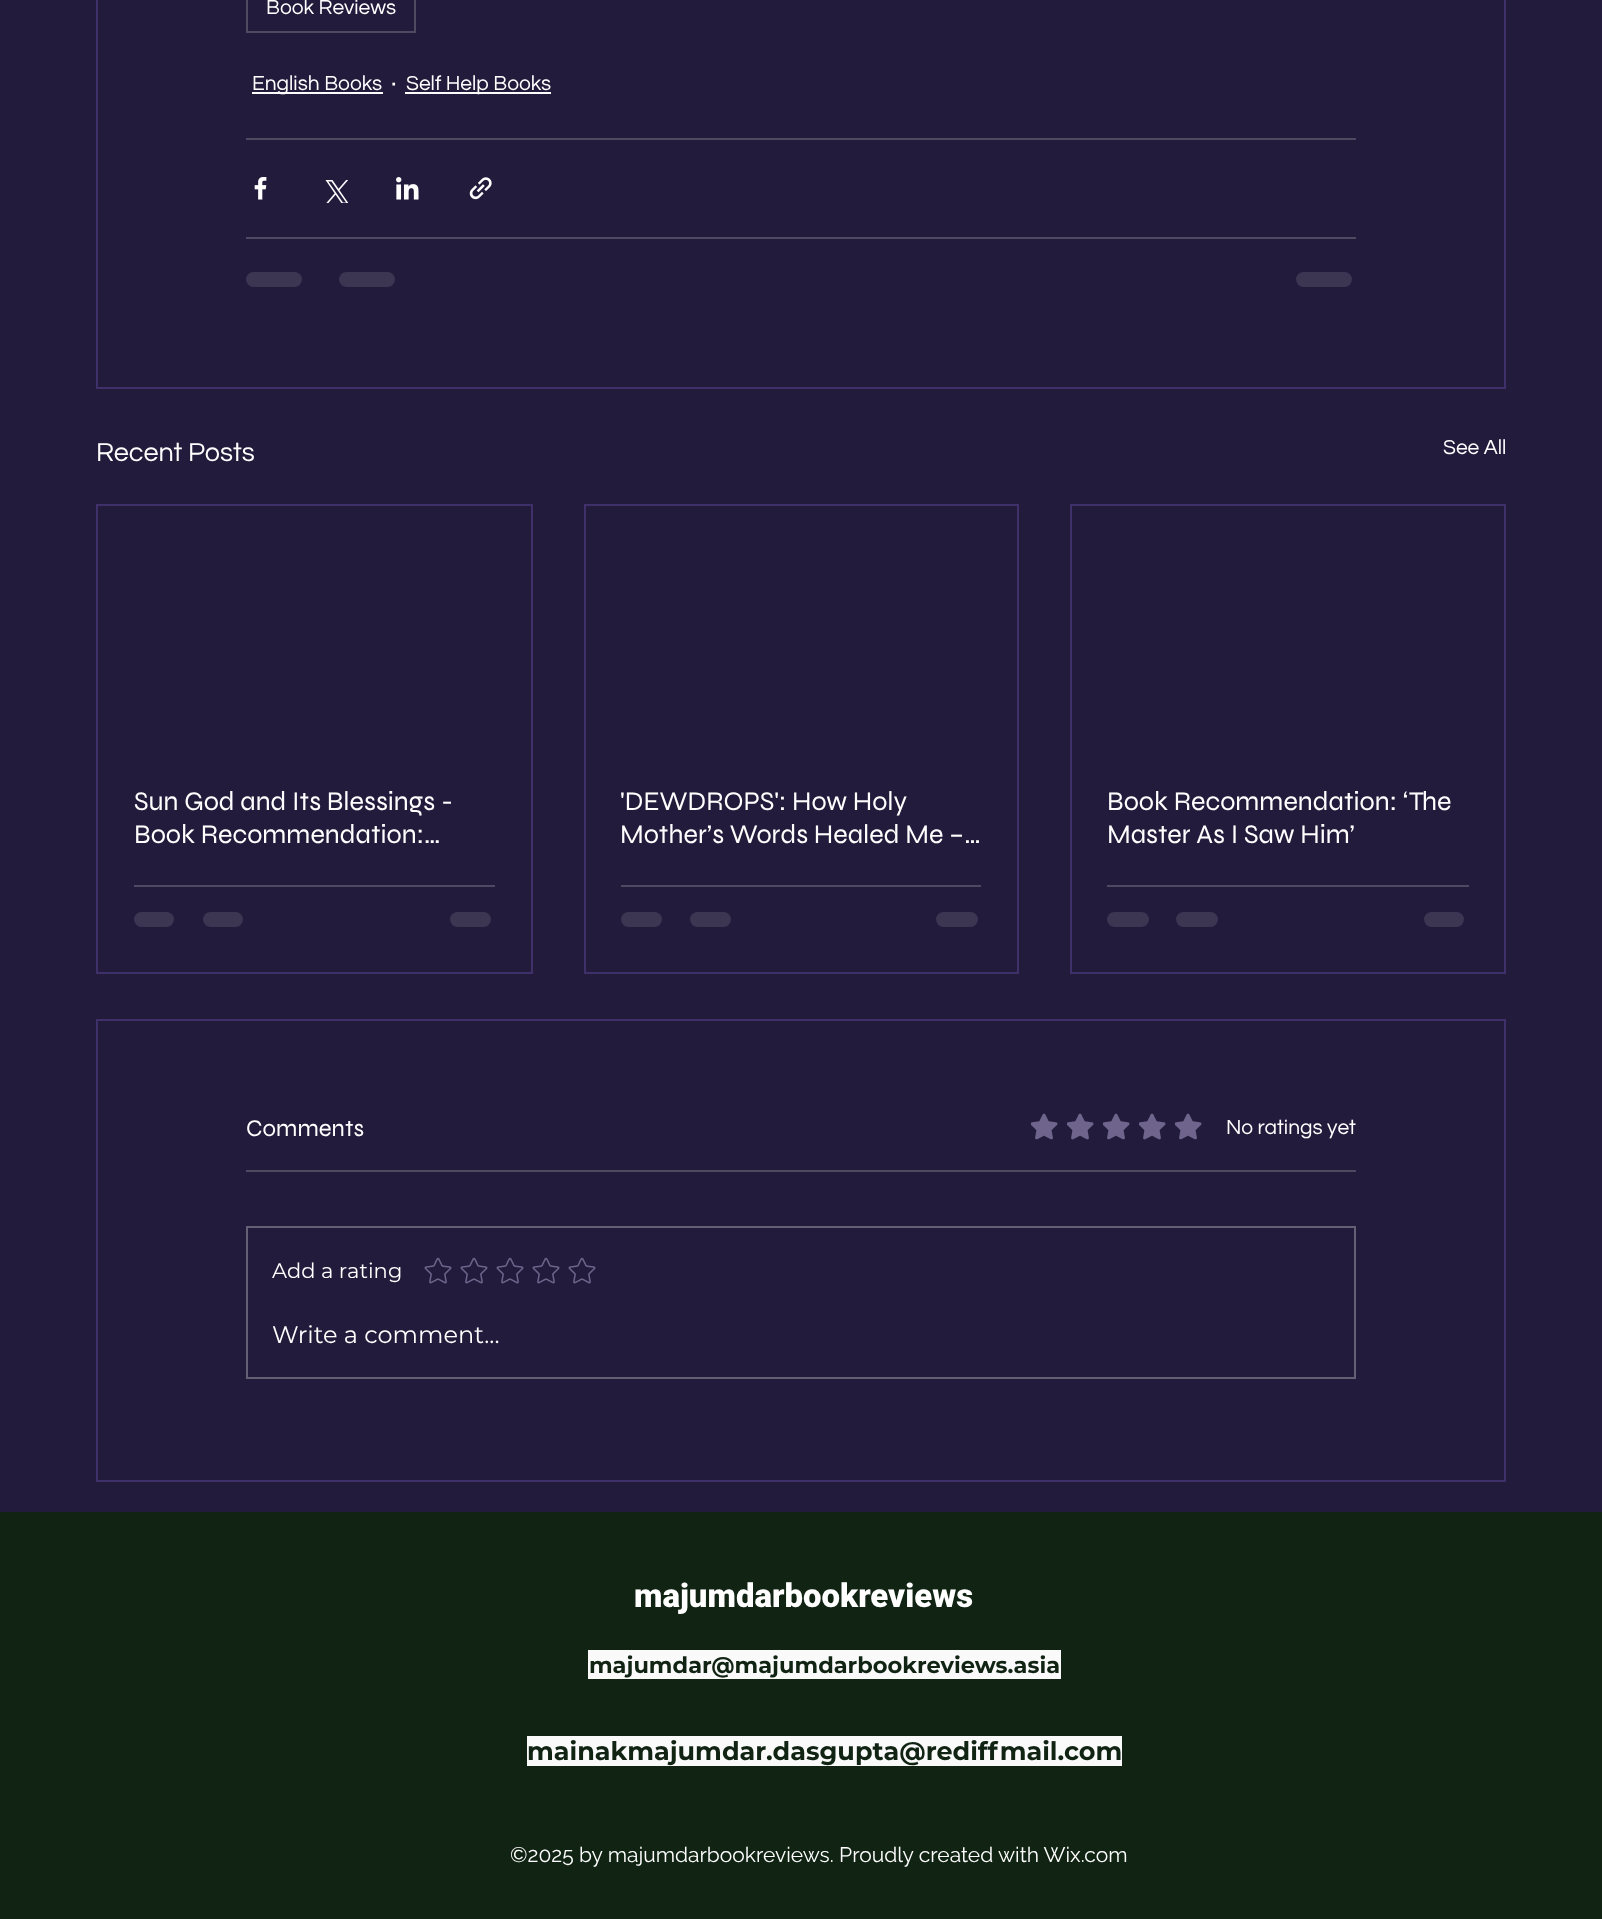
<svg xmlns="http://www.w3.org/2000/svg" xmlns:xlink="http://www.w3.org/1999/xlink" width="1602" height="1919" viewBox="0 0 1602 1919">
<style>
.cls-1{font:21px Questrial;fill:#ffffff}
.cls-2{font:27px Questrial;fill:#ffffff}
.cls-3{font:27px Syne;fill:#ffffff}
.cls-4{font:24px Syne;fill:#ffffff}
.cls-5{font:21px Montserrat;fill:#ffffff}
.cls-6{font:24px Montserrat;fill:#ffffff}
.cls-7{font:900 33px Roboto;fill:#ffffff}
.cls-8{font:bold 22.5px Montserrat;fill:#112414}
.cls-9{font:bold 25.5px Montserrat;fill:#112414}
.cls-10{font:21px Raleway;fill:#ffffff}
</style>
<rect width="100%" height="100%" fill="#231b3b"/>
<rect fill="none" stroke="#3f3069" stroke-width="2" x="97" y="-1" width="1408" height="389"/>
<rect fill="none" stroke="#4f4962" stroke-width="2" x="247" y="-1" width="168" height="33"/>
<rect fill="#ffffff" x="252" y="92" width="131" height="2"/>
<rect fill="#ffffff" x="405" y="92" width="146" height="2"/>
<rect fill="#4f4962" x="246" y="138" width="1110" height="2"/>
<image xlink:href="image0.png" x="254" y="177" width="13" height="23"/>
<image xlink:href="image1.png" x="325" y="180" width="23" height="23"/>
<image xlink:href="image2.png" x="396" y="177" width="23" height="23"/>
<image xlink:href="image3.png" x="469" y="177" width="23" height="23"/>
<rect fill="#4f4962" x="246" y="237" width="1110" height="2"/>
<rect fill="#3d3653" x="246" y="272" width="56" height="15" rx="7.5"/>
<rect fill="#3d3653" x="339" y="272" width="56" height="15" rx="7.5"/>
<rect fill="#3d3653" x="1296" y="272" width="56" height="15" rx="7.5"/>
<rect fill="none" stroke="#3f3069" stroke-width="2" x="97" y="505" width="435" height="468"/>
<rect fill="#4f4962" x="134" y="885" width="361" height="2"/>
<rect fill="#3d3653" x="134" y="912" width="40" height="15" rx="7.5"/>
<rect fill="#3d3653" x="203" y="912" width="40" height="15" rx="7.5"/>
<rect fill="#3d3653" x="450" y="912" width="41" height="15" rx="7.5"/>
<rect fill="none" stroke="#3f3069" stroke-width="2" x="585" y="505" width="433" height="468"/>
<rect fill="#4f4962" x="621" y="885" width="360" height="2"/>
<rect fill="#3d3653" x="621" y="912" width="41" height="15" rx="7.5"/>
<rect fill="#3d3653" x="690" y="912" width="41" height="15" rx="7.5"/>
<rect fill="#3d3653" x="936" y="912" width="42" height="15" rx="7.5"/>
<rect fill="none" stroke="#3f3069" stroke-width="2" x="1071" y="505" width="434" height="468"/>
<rect fill="#4f4962" x="1107" y="885" width="362" height="2"/>
<rect fill="#3d3653" x="1107" y="912" width="42" height="15" rx="7.5"/>
<rect fill="#3d3653" x="1176" y="912" width="42" height="15" rx="7.5"/>
<rect fill="#3d3653" x="1424" y="912" width="40" height="15" rx="7.5"/>
<rect fill="none" stroke="#3f3069" stroke-width="2" x="97" y="1020" width="1408" height="461"/>
<image xlink:href="image4.png" x="1031" y="1113" width="27" height="27"/>
<image xlink:href="image4.png" x="1067" y="1113" width="27" height="27"/>
<image xlink:href="image4.png" x="1103" y="1113" width="27" height="27"/>
<image xlink:href="image4.png" x="1139" y="1113" width="27" height="27"/>
<image xlink:href="image4.png" x="1175" y="1113" width="27" height="27"/>
<rect fill="#4f4962" x="246" y="1170" width="1110" height="2"/>
<rect fill="none" stroke="#655f76" stroke-width="2" x="247" y="1227" width="1108" height="151"/>
<image xlink:href="image5.png" x="424" y="1257" width="28" height="27"/>
<image xlink:href="image5.png" x="460" y="1257" width="28" height="27"/>
<image xlink:href="image5.png" x="496" y="1257" width="28" height="27"/>
<image xlink:href="image5.png" x="532" y="1257" width="28" height="27"/>
<image xlink:href="image5.png" x="568" y="1257" width="28" height="27"/>
<rect fill="#112414" x="0" y="1512" width="1602" height="407"/>
<rect fill="#fafafa" x="588" y="1650" width="473" height="29"/>
<rect fill="#fafafa" x="527" y="1736" width="595" height="30"/>
<text class="cls-1" x="266" y="14">Book Reviews</text>
<text class="cls-1" x="252" y="90">English Books</text>
<text class="cls-2" x="391" y="92">·</text>
<text class="cls-1" x="406" y="90">Self Help Books</text>
<text class="cls-2" x="96" y="461">Recent Posts</text>
<text class="cls-1" x="1443" y="454">See All</text>
<text class="cls-3"><tspan x="134" y="810">Sun God and Its Blessings -</tspan><tspan x="134" y="843">Book Recommendation:…</tspan></text>
<text class="cls-3"><tspan x="620" y="810">'DEWDROPS': How Holy</tspan><tspan x="620" y="843">Mother’s Words Healed Me –…</tspan></text>
<text class="cls-3"><tspan x="1107" y="810">Book Recommendation: ‘The</tspan><tspan x="1107" y="843">Master As I Saw Him’</tspan></text>
<text class="cls-4" x="246" y="1136">Comments</text>
<text class="cls-1" x="1226" y="1134">No ratings yet</text>
<text class="cls-5" x="272" y="1278">Add a rating</text>
<text class="cls-6" x="272" y="1343">Write a comment...</text>
<text class="cls-7" x="634" y="1607">majumdarbookreviews</text>
<text class="cls-8" x="589" y="1673">majumdar@majumdarbookreviews.asia</text>
<text class="cls-9" x="527" y="1760">mainakmajumdar.dasgupta@rediffmail.com</text>
<text class="cls-10" x="510" y="1862">©2025 by majumdarbookreviews. Proudly created with Wix.com</text>
</svg>
